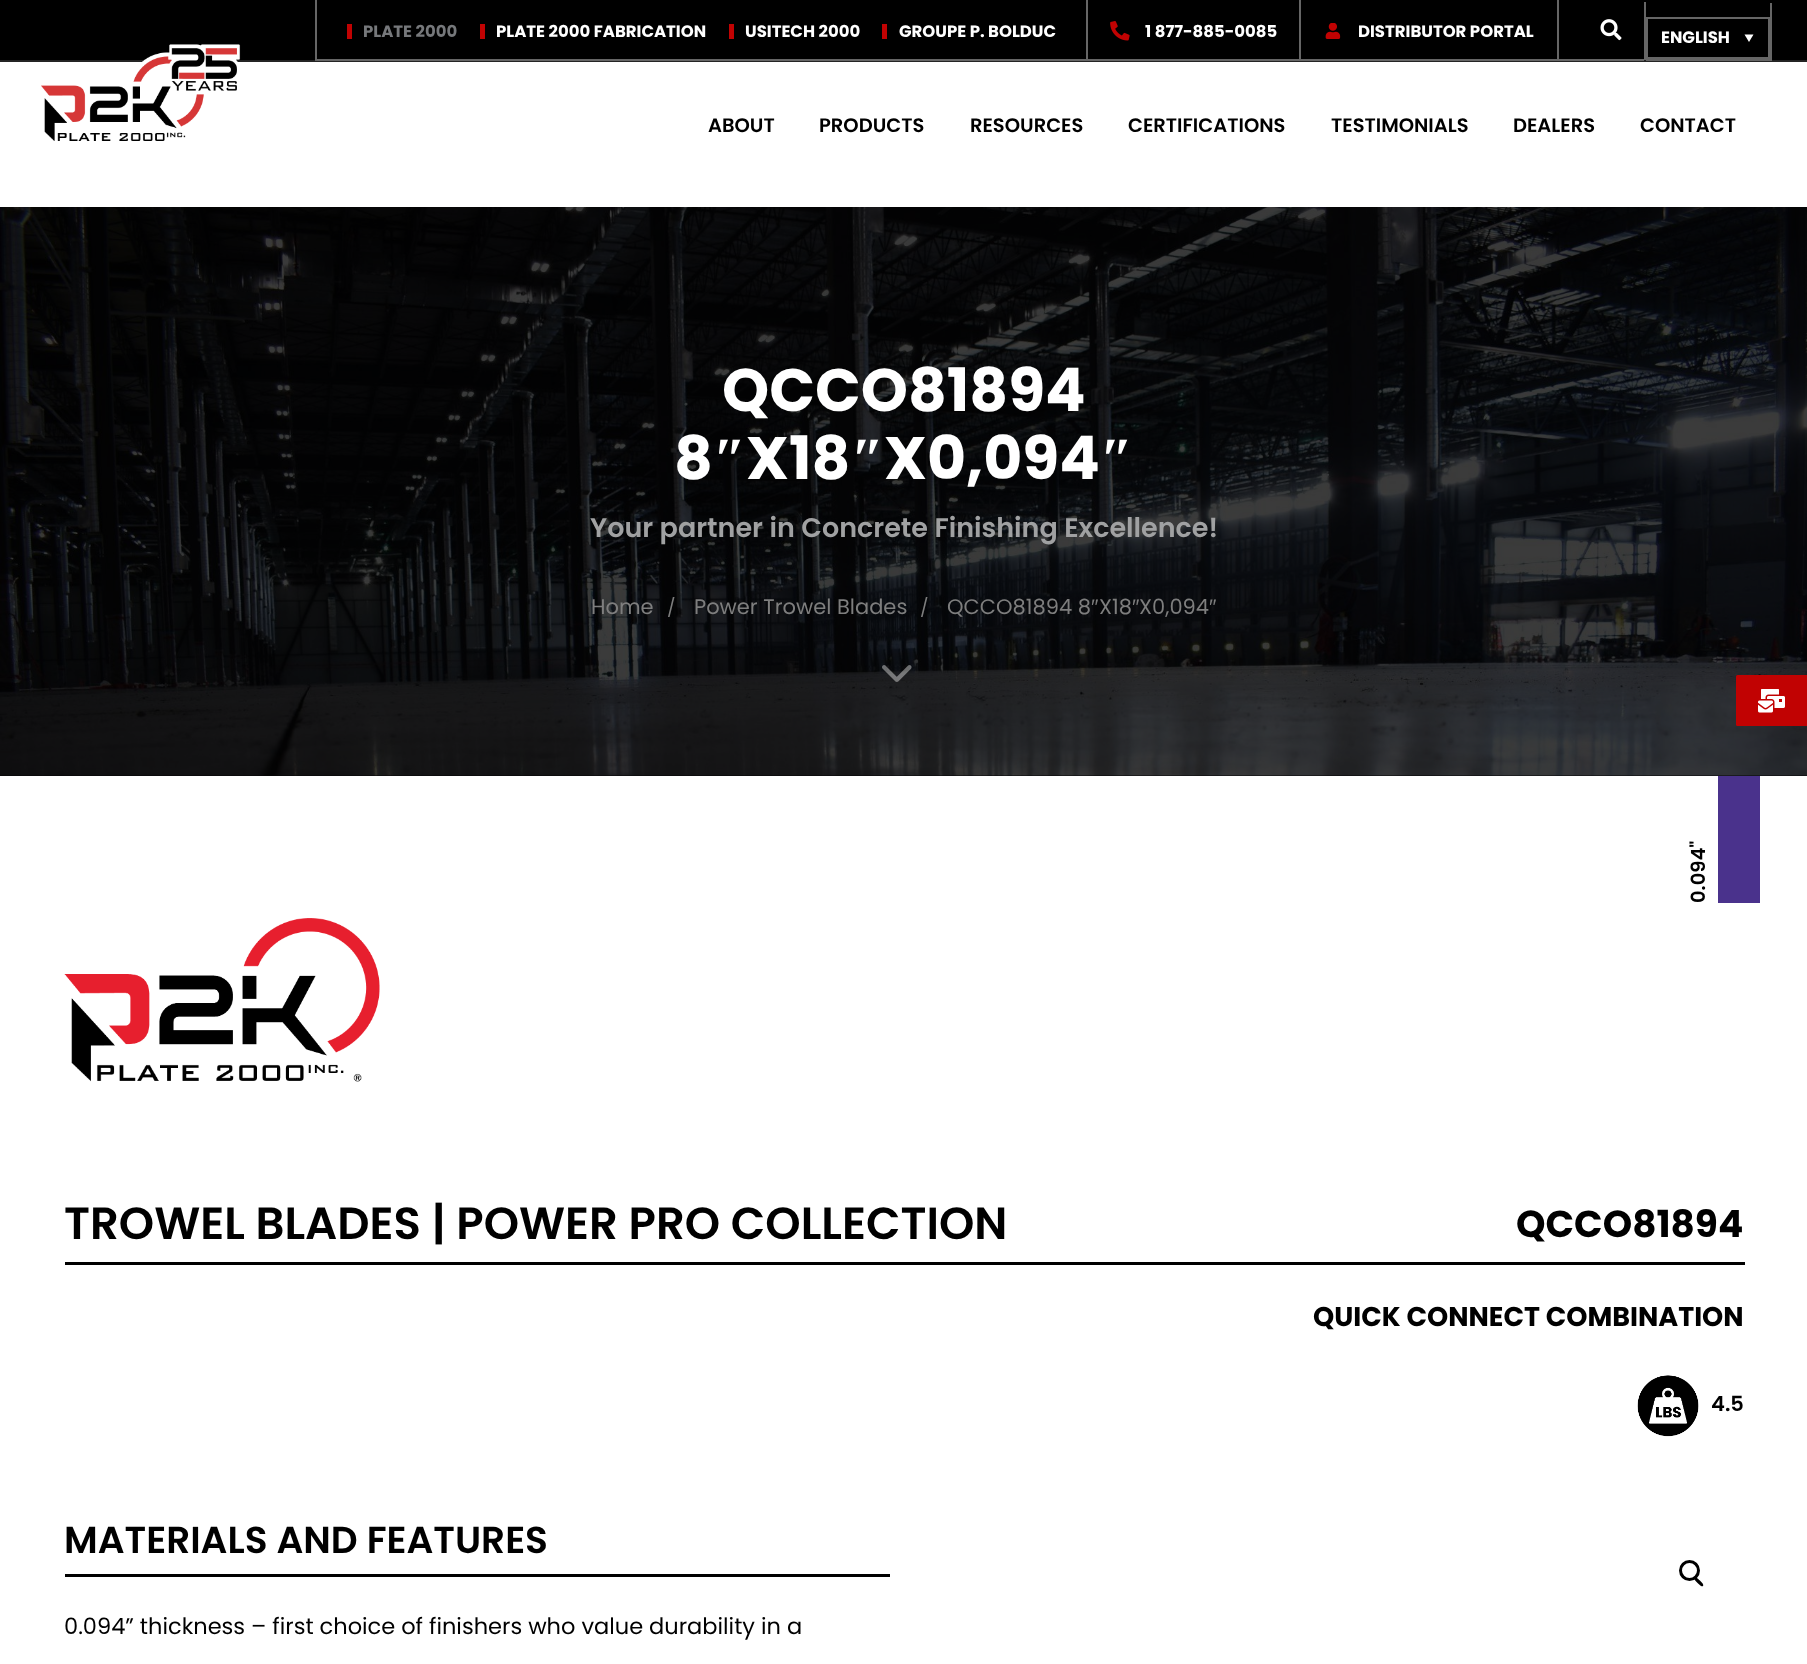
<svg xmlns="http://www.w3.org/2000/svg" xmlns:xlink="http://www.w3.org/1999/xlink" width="1807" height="1664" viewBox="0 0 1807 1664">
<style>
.cls-1{font:bold 16.5px Poppins;fill:#76787b}
.cls-2{font:bold 16.5px Poppins;fill:#ffffff}
.cls-3{font:600 19.5px Poppins;fill:#000000}
.cls-4{font:bold 60px Poppins;fill:#ffffff}
.cls-5{font:bold 60px Liberation Serif;fill:#ffffff}
.cls-6{font:600 27px Poppins;fill:#a0a1a2}
.cls-7{font:21px Poppins;fill:#7e7e7e}
.cls-8{font:18px Poppins;fill:#7e7e7e}
.cls-9{font:21px Liberation Sans;fill:#7e7e7e}
.cls-10{font:600 45px Poppins;fill:#000000}
.cls-11{font:bold 37.5px Poppins;fill:#000000}
.cls-12{font:bold 27px Poppins;fill:#000000}
.cls-13{font:600 21px Poppins;fill:#000000}
.cls-14{font:600 37.5px Poppins;fill:#000000}
.cls-15{font:22.5px Poppins;fill:#000000}
</style>
<rect width="100%" height="100%" fill="#ffffff"/>
<rect fill="#000000" x="0" y="0" width="1807" height="60"/>
<rect fill="#242424" x="0" y="60" width="1807" height="2"/>
<rect fill="#666666" x="315" y="59" width="1329" height="2"/>
<rect fill="#666666" x="315" y="0" width="2" height="60"/>
<rect fill="#c10202" x="347" y="24" width="5" height="15"/>
<rect fill="#c10202" x="480" y="24" width="5" height="15"/>
<rect fill="#c10202" x="729" y="24" width="5" height="15"/>
<rect fill="#c10202" x="882" y="24" width="5" height="15"/>
<rect fill="#666666" x="1086" y="0" width="2" height="60"/>
<image xlink:href="image0.png" x="1110" y="21" width="20" height="20"/>
<rect fill="#666666" x="1299" y="0" width="2" height="60"/>
<image xlink:href="image1.png" x="1325" y="23" width="16" height="16"/>
<rect fill="#666666" x="1557" y="0" width="2" height="60"/>
<image xlink:href="image2.png" x="1600" y="19" width="22" height="22"/>
<rect fill="#666666" x="1770" y="3" width="2" height="57"/>
<rect fill="#666666" x="1646" y="59" width="126" height="2"/>
<rect fill="#666666" x="1644" y="2" width="2" height="58"/>
<rect fill="none" stroke="#666666" stroke-width="2" x="1647" y="18" width="122" height="40"/>
<path fill="#ffffff" d="M1744.5 34.5H1753.5L1749 42Z"/>
<image xlink:href="image3.png" x="41" y="44" width="200" height="97"/>
<rect fill="#040407" x="0" y="775" width="1807" height="1"/>
<image xlink:href="image5.png" x="0" y="207" width="1807" height="569"/>
<rect fill="#c10202" x="1736" y="675" width="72" height="51" rx="1.5"/>
<image xlink:href="image4.png" x="1758" y="689" width="27" height="24"/>
<image xlink:href="image6.png" x="882" y="665" width="30" height="17"/>
<rect fill="#4a328c" x="1718" y="776" width="42" height="127"/>
<image xlink:href="image7.png" x="64" y="918" width="316" height="164"/>
<rect fill="#000000" x="65" y="1262" width="1680" height="3"/>
<image xlink:href="image8.png" x="1637" y="1375" width="62" height="62"/>
<rect fill="#000000" x="65" y="1574" width="825" height="3"/>
<circle fill="none" stroke="#000000" stroke-width="3" cx="1689.5" cy="1570.5" r="9"/>
<path fill="#000000" d="M1694.5 1577.5C1696 1576 1699 1580 1700 1580.5C1700.5 1581.5 1704.5 1584.5 1703 1586C1701.5 1587.5 1698.5 1583.5 1697.5 1583C1697 1582 1693 1579 1694.5 1577.5Z"/>
<text class="cls-1" x="363" y="37">PLATE 2000</text>
<text class="cls-2" x="496" y="37">PLATE 2000 FABRICATION</text>
<text class="cls-2" x="745" y="37">USITECH 2000</text>
<text class="cls-2" x="899" y="37">GROUPE P. BOLDUC</text>
<text class="cls-2" x="1145" y="37">1 877-885-0085</text>
<text class="cls-2" x="1358" y="37">DISTRIBUTOR PORTAL</text>
<text class="cls-2" x="1661" y="43">ENGLISH</text>
<text class="cls-3" x="708" y="132">ABOUT</text>
<text class="cls-3" x="819" y="132">PRODUCTS</text>
<text class="cls-3" x="970" y="132">RESOURCES</text>
<text class="cls-3" x="1128" y="132">CERTIFICATIONS</text>
<text class="cls-3" x="1331" y="132">TESTIMONIALS</text>
<text class="cls-3" x="1513" y="132">DEALERS</text>
<text class="cls-3" x="1640" y="132">CONTACT</text>
<text class="cls-4" x="722" y="411">QCCO81894</text>
<text class="cls-4" x="674" y="479">8</text>
<text class="cls-5" x="713" y="479">″</text>
<text class="cls-4" x="746" y="479">X18</text>
<text class="cls-5" x="851" y="479">″</text>
<text class="cls-4" x="884" y="479">X0,094</text>
<text class="cls-5" x="1100" y="479">″</text>
<text class="cls-6" x="590" y="537">Your partner in Concrete Finishing Excellence!</text>
<text class="cls-7" x="591" y="614">Home</text>
<text class="cls-8" x="667" y="614">/</text>
<text class="cls-7" x="694" y="614">Power Trowel Blades</text>
<text class="cls-8" x="920" y="614">/</text>
<text class="cls-7" x="947" y="614">QCCO81894 8</text>
<text class="cls-9" x="1091" y="614">″</text>
<text class="cls-7" x="1099" y="614">X18</text>
<text class="cls-9" x="1132" y="614">″</text>
<text class="cls-7" x="1139" y="614">X0,094</text>
<text class="cls-9" x="1209" y="614">″</text>
<text class="cls-3" x="1705" y="903" transform="rotate(-90 1705 903)">0.094"</text>
<text class="cls-10" x="64" y="1239">TROWEL BLADES | POWER PRO COLLECTION</text>
<text class="cls-11" x="1516" y="1237">QCCO81894</text>
<text class="cls-12" x="1313" y="1326">QUICK CONNECT COMBINATION</text>
<text class="cls-13" x="1711" y="1411">4.5</text>
<text class="cls-14" x="64" y="1553">MATERIALS AND FEATURES</text>
<text class="cls-15" x="64" y="1634">0.094” thickness – first choice of finishers who value durability in a</text>
</svg>
